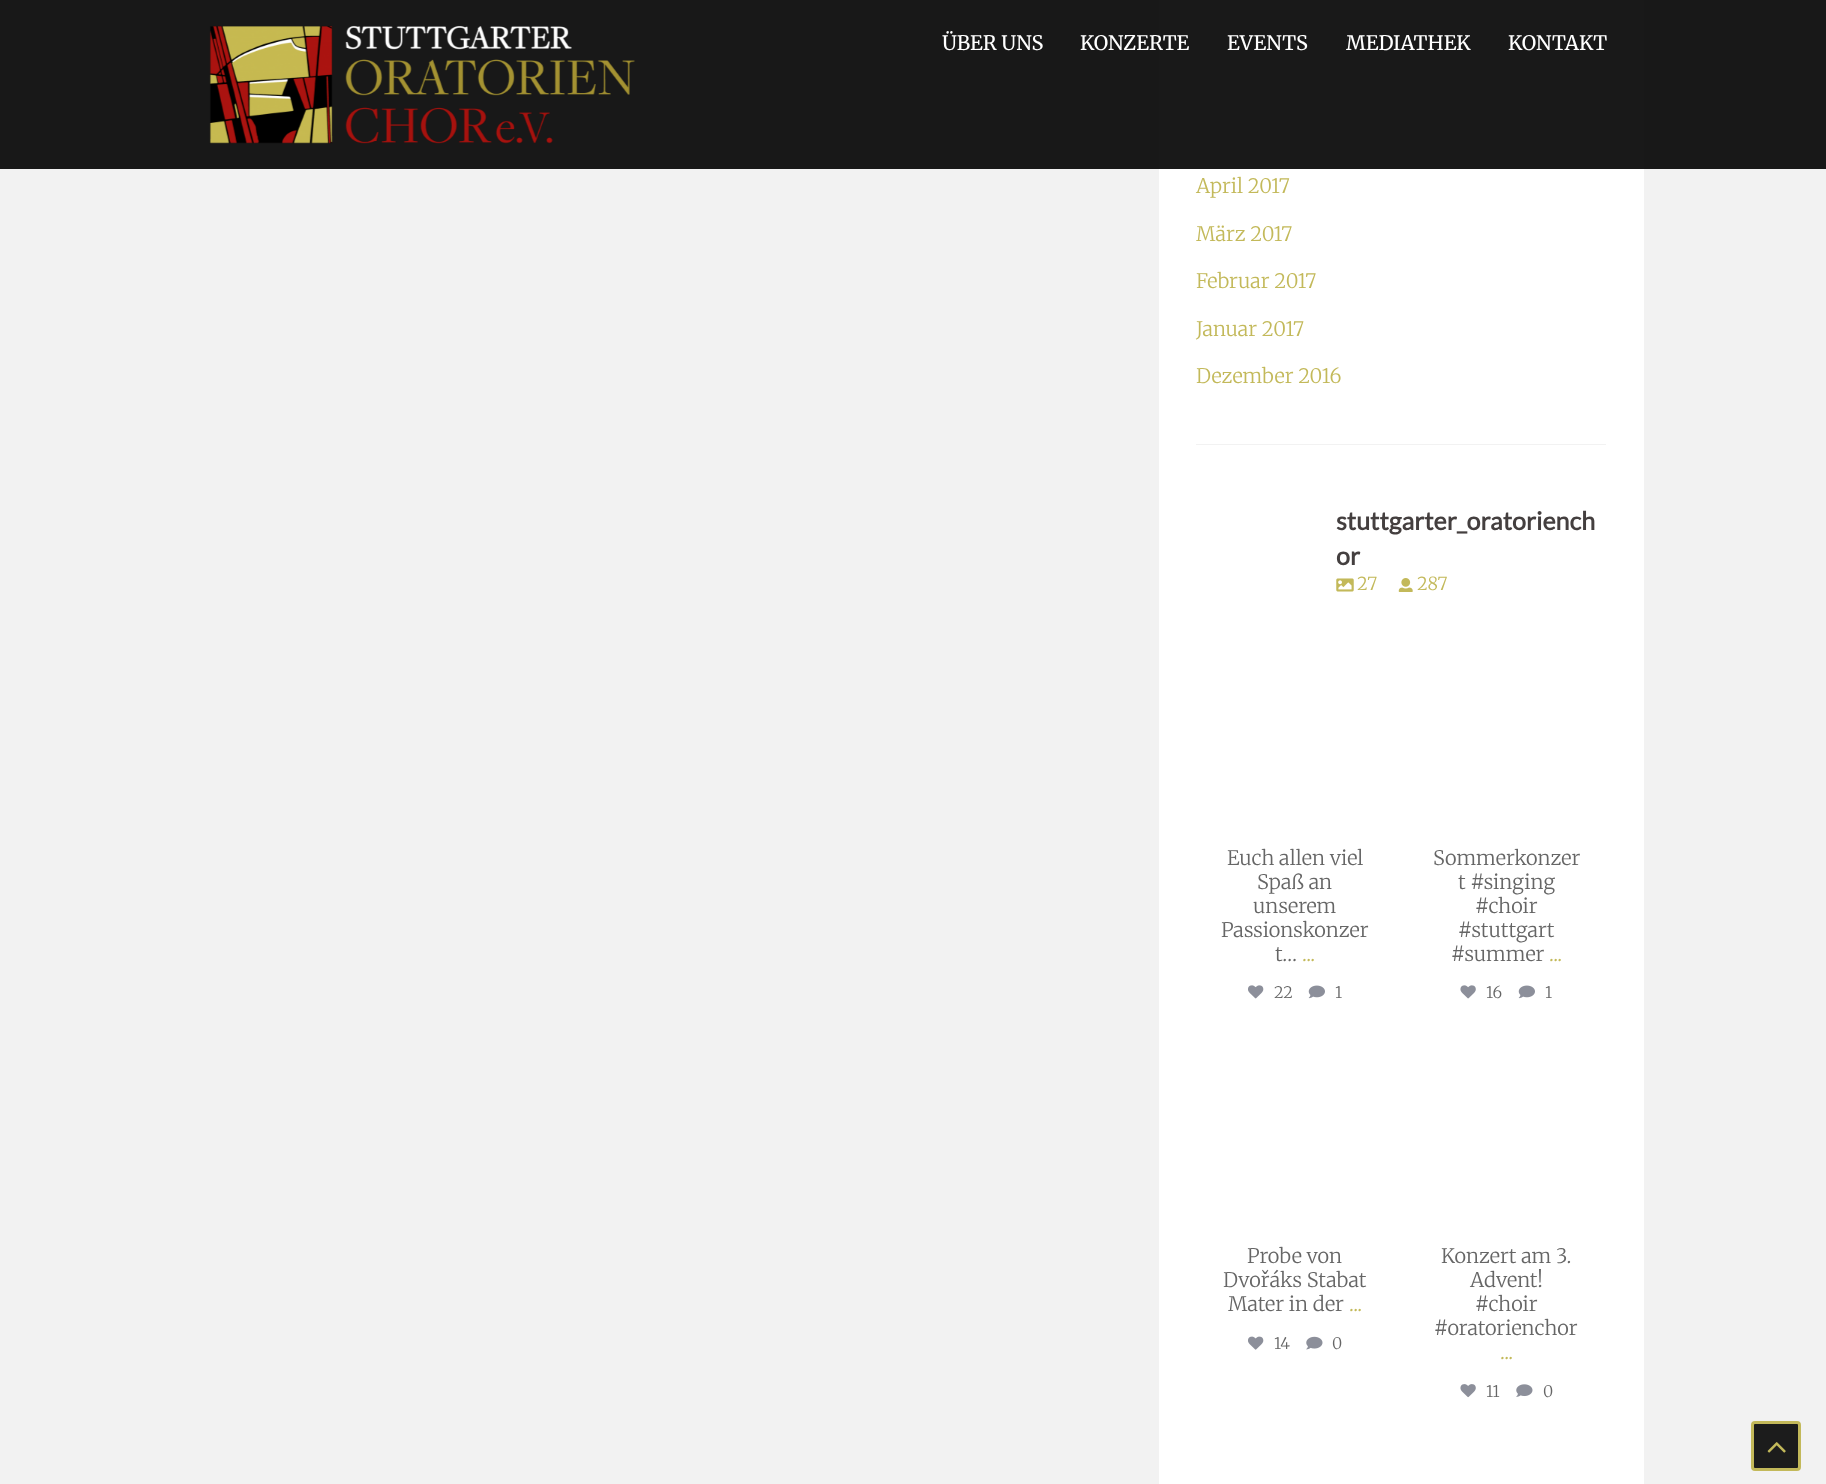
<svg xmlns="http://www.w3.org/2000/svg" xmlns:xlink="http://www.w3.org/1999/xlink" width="1826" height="1484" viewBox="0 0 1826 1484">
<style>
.cls-1{font:20px Merriweather;fill:#ffffff}
.cls-2{font:300 20px Merriweather;fill:#c3b95a}
.cls-3{font:bold 25px Lato;fill:#443f3f}
.cls-4{font:300 18px Merriweather;fill:#c3b95a}
.cls-5{font:300 20px Merriweather;fill:#666666}
.cls-6{font:300 16px Merriweather;fill:#666666}
</style>
<rect width="100%" height="100%" fill="#f2f2f2"/>
<rect fill="#ffffff" x="1159" y="0" width="485" height="1484"/>
<rect fill="#000000" fill-opacity="0.9" x="0" y="0" width="1826" height="169"/>
<image xlink:href="image0.png" x="209" y="25" width="426" height="119"/>
<rect fill="#f2f2f2" x="1196" y="444" width="410" height="1"/>
<image xlink:href="image1.png" x="1336" y="578" width="18" height="14"/>
<image xlink:href="image2.png" x="1398" y="578" width="15" height="14"/>
<image xlink:href="image3.png" x="1248" y="985" width="16" height="14"/>
<image xlink:href="image4.png" x="1308" y="985" width="17" height="14"/>
<image xlink:href="image5.png" x="1460" y="985" width="16" height="14"/>
<image xlink:href="image4.png" x="1518" y="985" width="17" height="14"/>
<image xlink:href="image6.png" x="1248" y="1336" width="16" height="14"/>
<image xlink:href="image7.png" x="1306" y="1336" width="17" height="14"/>
<image xlink:href="image8.png" x="1460" y="1384" width="16" height="14"/>
<image xlink:href="image9.png" x="1516" y="1384" width="17" height="13"/>
<rect fill="#1c1c1c" stroke="#c3b95a" stroke-width="3" x="1752.5" y="1422.5" width="47" height="47" rx="2.5"/>
<image xlink:href="image10.png" x="1767" y="1442" width="19" height="11"/>
<text class="cls-1" x="942" y="50">ÜBER UNS</text>
<text class="cls-1" x="1080" y="50">KONZERTE</text>
<text class="cls-1" x="1227" y="50">EVENTS</text>
<text class="cls-1" x="1346" y="50">MEDIATHEK</text>
<text class="cls-1" x="1508" y="50">KONTAKT</text>
<text class="cls-2" x="1196" y="193">April 2017</text>
<text class="cls-2" x="1196" y="241">März 2017</text>
<text class="cls-2" x="1196" y="288">Februar 2017</text>
<text class="cls-2" x="1196" y="336">Januar 2017</text>
<text class="cls-2" x="1196" y="383">Dezember 2016</text>
<text class="cls-3"><tspan x="1336" y="530">stuttgarter_oratoriench</tspan><tspan x="1336" y="565">or</tspan></text>
<text class="cls-4" x="1357" y="590">27</text>
<text class="cls-4" x="1417" y="590">287</text>
<text class="cls-5" x="1227" y="865">Euch allen viel</text>
<text class="cls-5" x="1257" y="889">Spaß an</text>
<text class="cls-5" x="1253" y="913">unserem</text>
<text class="cls-5" x="1221" y="937">Passionskonzer</text>
<text class="cls-5" x="1275" y="961">t…</text>
<text class="cls-2" x="1302" y="961">...</text>
<text class="cls-6" x="1274" y="998">22</text>
<text class="cls-6" x="1335" y="998">1</text>
<text class="cls-5" x="1433" y="865">Sommerkonzer</text>
<text class="cls-5" x="1458" y="889">t #singing</text>
<text class="cls-5" x="1475" y="913">#choir</text>
<text class="cls-5" x="1458" y="937">#stuttgart</text>
<text class="cls-5" x="1451" y="961">#summer</text>
<text class="cls-2" x="1549" y="961">...</text>
<text class="cls-6" x="1486" y="998">16</text>
<text class="cls-6" x="1545" y="998">1</text>
<text class="cls-5" x="1247" y="1263">Probe von</text>
<text class="cls-5" x="1223" y="1287">Dvořáks Stabat</text>
<text class="cls-5" x="1228" y="1311">Mater in der</text>
<text class="cls-2" x="1349" y="1311">...</text>
<text class="cls-6" x="1274" y="1349">14</text>
<text class="cls-6" x="1332" y="1349">0</text>
<text class="cls-5" x="1441" y="1263">Konzert am 3.</text>
<text class="cls-5" x="1470" y="1287">Advent!</text>
<text class="cls-5" x="1475" y="1311">#choir</text>
<text class="cls-5" x="1434" y="1335">#oratorienchor</text>
<text class="cls-2" x="1500" y="1359">...</text>
<text class="cls-6" x="1486" y="1397">11</text>
<text class="cls-6" x="1543" y="1397">0</text>
</svg>
